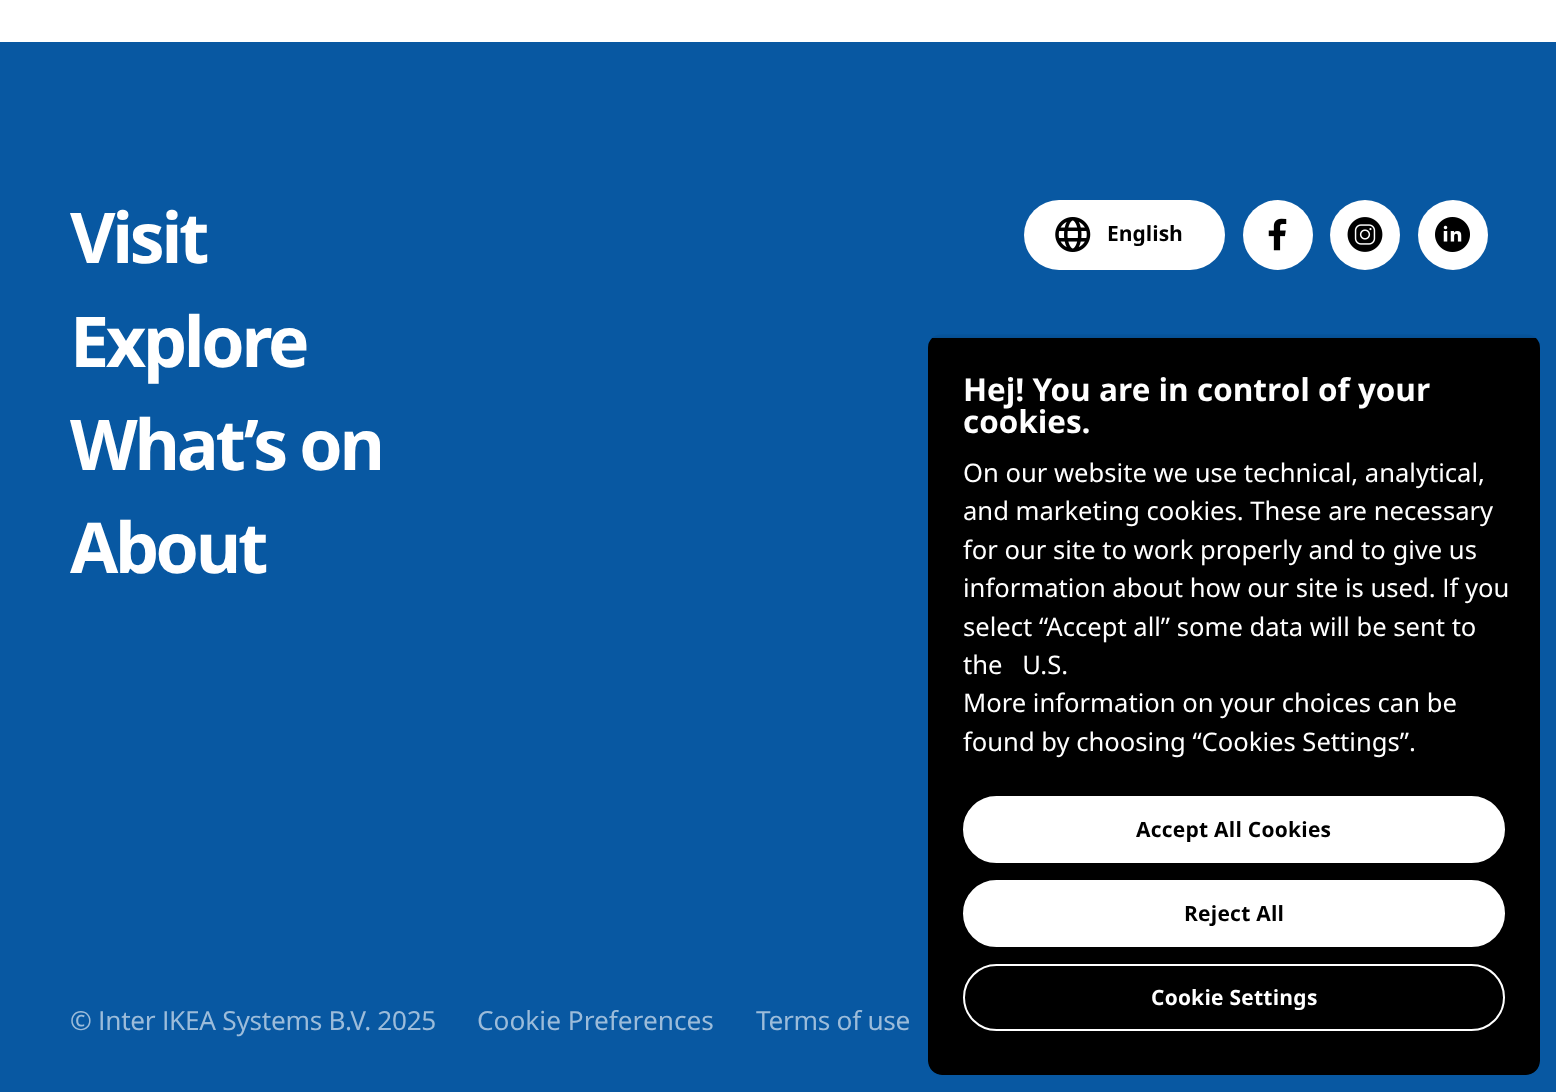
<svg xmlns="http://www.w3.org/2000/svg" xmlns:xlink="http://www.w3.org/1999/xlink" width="1556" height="1092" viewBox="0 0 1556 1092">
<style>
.cls-1{font:bold 70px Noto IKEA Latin;letter-spacing:-3.5px;fill:#ffffff}
.cls-2{font:bold 21px Noto IKEA Latin;fill:#000000}
.cls-3{font:26.25px Noto IKEA Latin;letter-spacing:-0.3px;fill:#9cbcda}
.cls-4{font:26.25px Noto IKEA Latin;fill:#9cbcda}
.cls-5{font:bold 31.5px Noto IKEA Latin;fill:#ffffff}
.cls-6{font:25.6px Noto IKEA Latin;fill:#ffffff}
.cls-7{font:bold 21px Noto IKEA Latin;letter-spacing:0.25px;fill:#000000}
.cls-8{font:bold 21px Noto IKEA Latin;letter-spacing:0.25px;fill:#ffffff}
</style>
<defs>
<clipPath id="clip1"><rect x="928" y="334" width="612" height="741" rx="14"/></clipPath>
<clipPath id="clip2"><rect x="928" y="334" width="612" height="741" rx="14"/></clipPath>
</defs>
<rect width="100%" height="100%" fill="#ffffff"/>
<rect fill="#0858a2" x="0" y="42" width="1556" height="1050"/>
<rect fill="#ffffff" x="1024" y="200" width="201" height="70" rx="35"/>
<image xlink:href="image0.png" x="1055" y="217" width="36" height="35"/>
<circle fill="#ffffff" cx="1278" cy="235" r="35"/>
<image xlink:href="image1.png" x="1268" y="218" width="19" height="33"/>
<circle fill="#ffffff" cx="1365" cy="235" r="35"/>
<image xlink:href="image2.png" x="1347" y="217" width="36" height="35"/>
<circle fill="#ffffff" cx="1453" cy="235" r="35"/>
<image xlink:href="image3.png" x="1435" y="217" width="35" height="35"/>
<g clip-path="url(#clip1)">
<rect fill="#000000" fill-opacity="0.2" filter="blur(3.5px)" x="928" y="338" width="612" height="737"/>
</g>
<g clip-path="url(#clip2)">
<path fill="#000000" d="M928 338H1540V1061C1540 1068.5 1533.5 1075 1526 1075H942C934.5 1075 928 1068.5 928 1061Z"/>
</g>
<rect fill="#ffffff" stroke="#ffffff" stroke-width="2" x="964" y="797" width="540" height="65" rx="32.5"/>
<rect fill="#ffffff" stroke="#ffffff" stroke-width="2" x="964" y="881" width="540" height="65" rx="32.5"/>
<rect fill="none" stroke="#ffffff" stroke-width="2" x="964" y="965" width="540" height="65" rx="32.5"/>
<text class="cls-1"><tspan x="70" y="263">Visit</tspan><tspan x="70" y="367">Explore</tspan><tspan x="70" y="470">What’s on</tspan><tspan x="70" y="573">About</tspan></text>
<text class="cls-2" x="1107" y="241">English</text>
<text class="cls-3" x="70" y="1030">© Inter IKEA Systems B.V. 2025</text>
<text class="cls-4" x="477" y="1030">Cookie Preferences</text>
<text class="cls-3" x="756" y="1030">Terms of use</text>
<text class="cls-5"><tspan x="963" y="401">Hej! You are in control of your</tspan><tspan x="963" y="433">cookies.</tspan></text>
<text class="cls-6"><tspan x="963" y="482">On our website we use technical, analytical,</tspan><tspan x="963" y="520">and marketing cookies. These are necessary</tspan><tspan x="963" y="559">for our site to work properly and to give us</tspan><tspan x="963" y="597">information about how our site is used. If you</tspan><tspan x="963" y="636">select “Accept all” some data will be sent to</tspan><tspan x="963" y="674" word-spacing="13">the U.S.</tspan><tspan x="963" y="712">More information on your choices can be</tspan><tspan x="963" y="751">found by choosing “Cookies Settings”.</tspan></text>
<text class="cls-7" x="1136" y="837">Accept All Cookies</text>
<text class="cls-7" x="1184" y="921">Reject All</text>
<text class="cls-8" x="1151" y="1005">Cookie Settings</text>
</svg>
